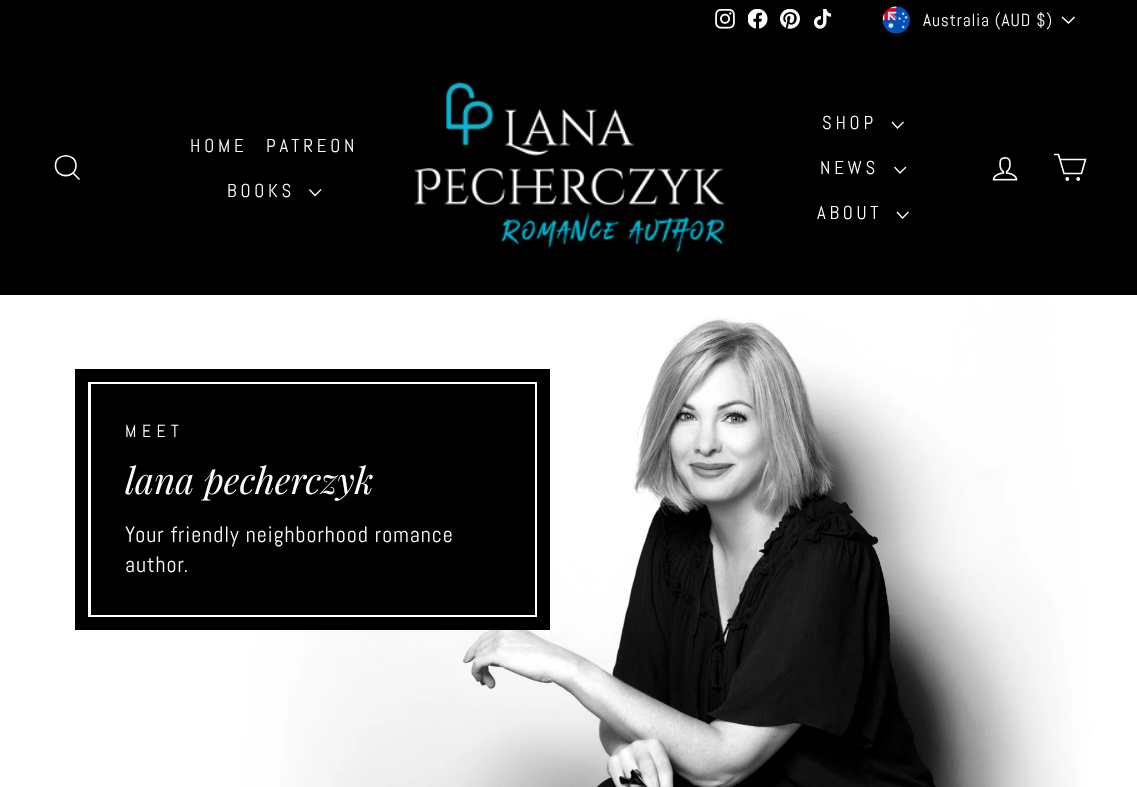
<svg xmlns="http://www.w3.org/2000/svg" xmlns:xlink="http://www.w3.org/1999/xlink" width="1137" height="787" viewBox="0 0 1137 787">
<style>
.cls-1{font:17.5px Abel;letter-spacing:0.9px;fill:#ffffff}
.cls-2{font:18.75px Abel;letter-spacing:3.75px;fill:#ffffff}
.cls-3{font:17.5px Abel;letter-spacing:5.5px;fill:#ffffff}
.cls-4{font:italic 36.5px Playfair Display;fill:#ffffff}
.cls-5{font:22px Abel;letter-spacing:1px;fill:#ffffff}
</style>
<rect width="100%" height="100%" fill="#000000"/>
<image xlink:href="image0.png" x="715" y="9" width="20" height="20"/>
<image xlink:href="image1.png" x="748" y="9" width="20" height="20"/>
<image xlink:href="image2.png" x="780" y="9" width="20" height="20"/>
<image xlink:href="image3.png" x="813" y="9" width="19" height="20"/>
<image xlink:href="image4.png" x="882" y="6" width="28" height="28"/>
<path fill="none" stroke="#ffffff" stroke-width="1.5" d="M1062 17L1068.5 23L1074.5 17"/>
<path fill="none" stroke="#ffffff" stroke-width="1.6" d="M76 165.5C76 179 55.5 179 55.5 165.5C55.5 152.5 76 152.5 76 165.5ZM79.5 179.5L73 173"/>
<path fill="none" stroke="#ffffff" stroke-width="1.3" d="M309.5 189.5L315 195.5L321 189.5"/>
<image xlink:href="image5.png" x="414" y="81" width="311" height="171"/>
<path fill="none" stroke="#ffffff" stroke-width="1.3" d="M892 122L897.5 128L903.5 122"/>
<path fill="none" stroke="#ffffff" stroke-width="1.3" d="M894.5 167L900 173L906 167"/>
<path fill="none" stroke="#ffffff" stroke-width="1.3" d="M897 212L902.5 218L908.5 212"/>
<image xlink:href="image6.png" x="992" y="157" width="26" height="24"/>
<path fill="none" stroke="#ffffff" stroke-width="1.6" d="M1060 159.5H1085.5L1081.5 173.5H1064L1058.5 154.5H1054"/>
<circle fill="none" stroke="#ffffff" stroke-width="1.6" cx="1067.3" cy="179" r="1.1"/>
<circle fill="none" stroke="#ffffff" stroke-width="1.6" cx="1078.2" cy="179" r="1.1"/>
<image xlink:href="image7.png" x="0" y="295" width="1137" height="492"/>
<rect fill="#000000" stroke="#ffffff" stroke-width="3" x="89.5" y="382.5" width="447" height="234"/>
<rect fill="none" stroke="#000000" stroke-width="13" x="81.5" y="375.5" width="462" height="248"/>
<text class="cls-1" x="923" y="26">Australia (AUD $)</text>
<text class="cls-2" x="190" y="152">HOME</text>
<text class="cls-2" x="266" y="152">PATREON</text>
<text class="cls-2" x="227" y="197">BOOKS</text>
<text class="cls-2" x="822" y="129">SHOP</text>
<text class="cls-2" x="820" y="174">NEWS</text>
<text class="cls-2" x="817" y="219">ABOUT</text>
<text class="cls-3" x="125" y="437">MEET</text>
<text class="cls-4" x="125" y="494">lana pecherczyk</text>
<text class="cls-5"><tspan x="125" y="542">Your friendly neighborhood romance</tspan><tspan x="125" y="572">author.</tspan></text>
</svg>
